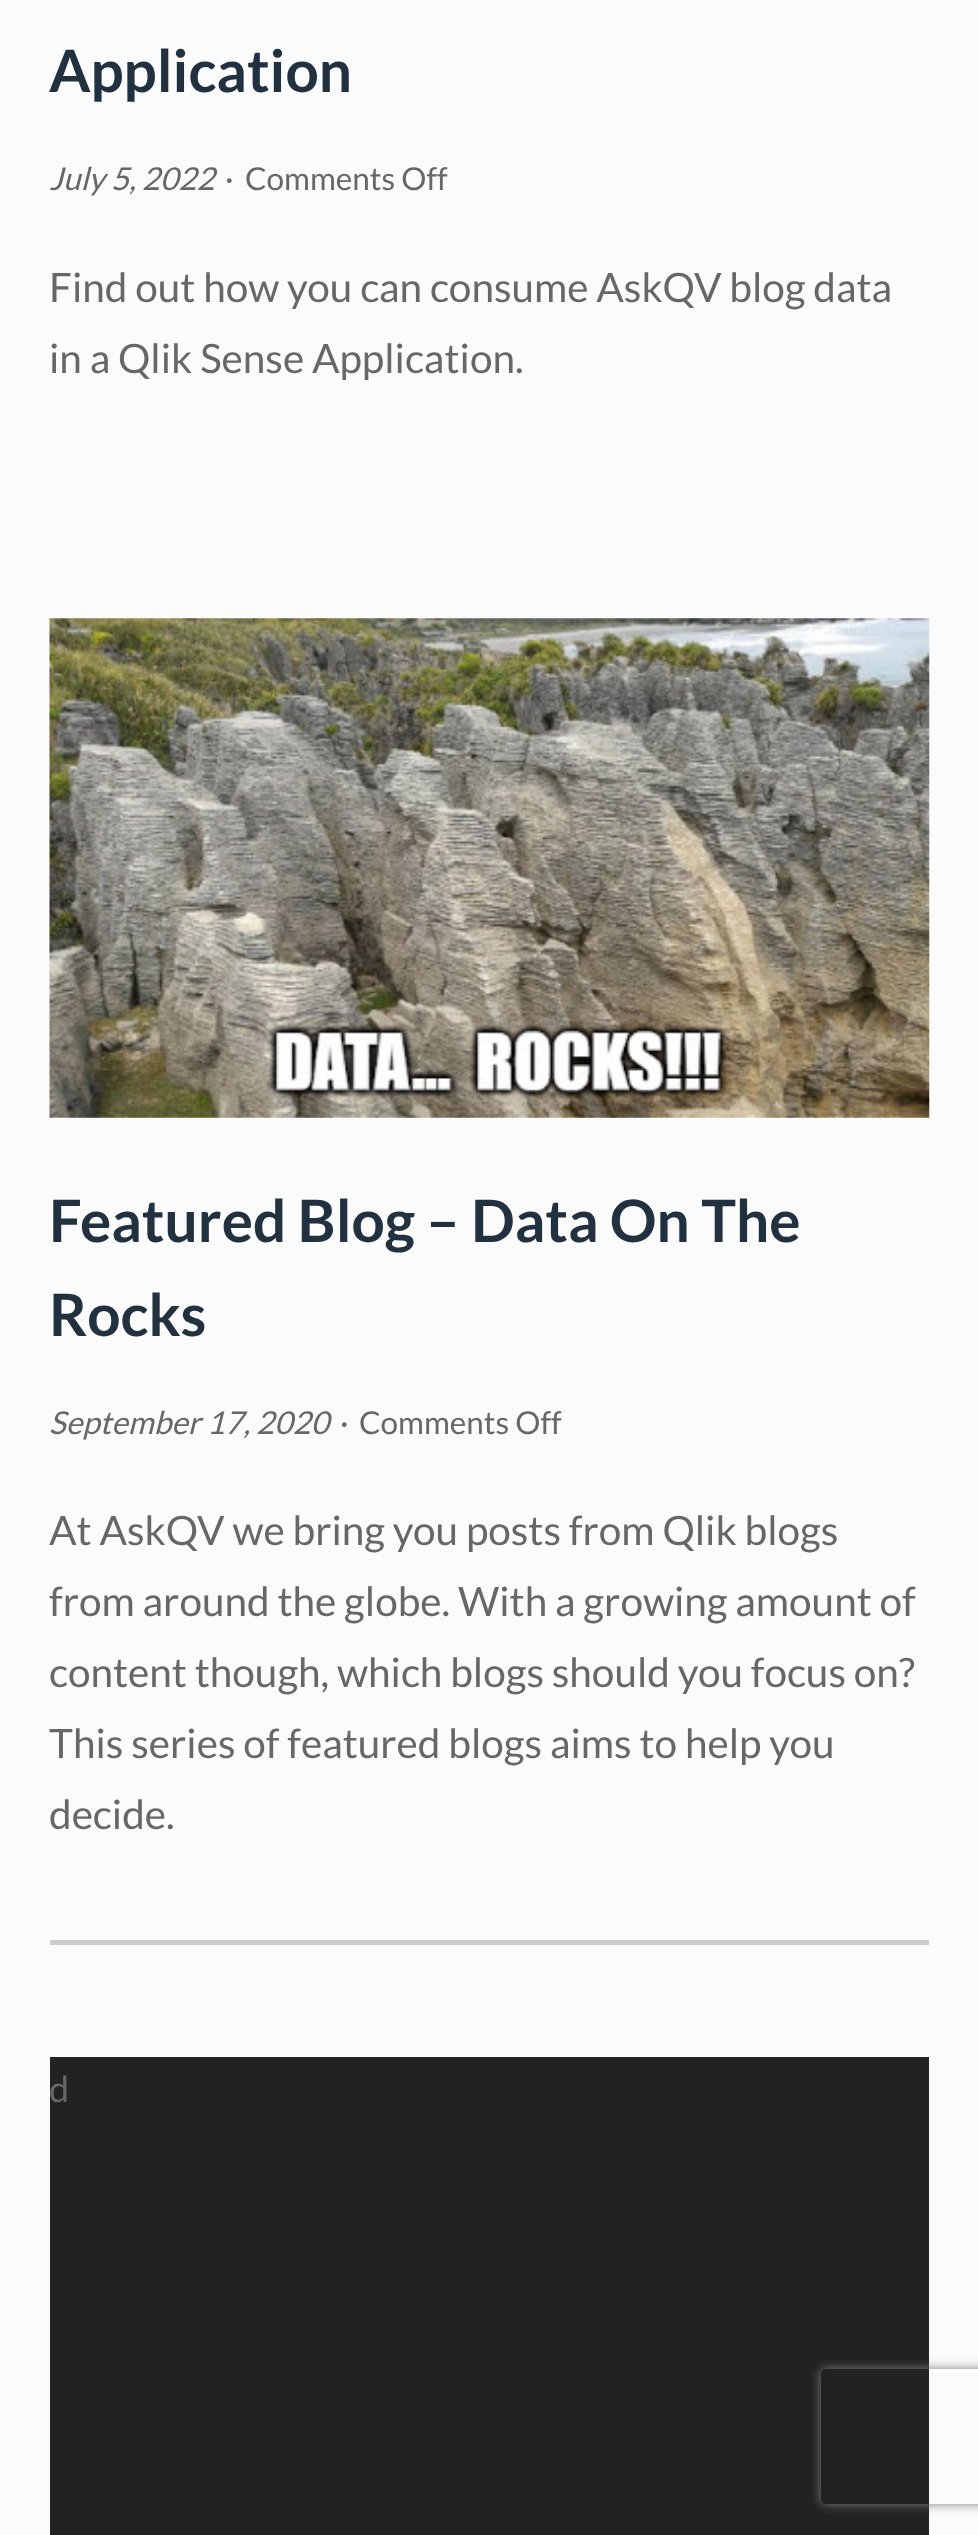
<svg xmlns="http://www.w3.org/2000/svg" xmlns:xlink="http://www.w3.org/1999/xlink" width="978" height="2535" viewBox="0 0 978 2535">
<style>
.cls-1{font:bold 58.5px Lato;fill:#22313f}
.cls-2{font:italic 31.5px Lato;fill:#676765}
.cls-3{font:31.5px Lato;fill:#676765}
.cls-4{font:40.5px Lato;fill:#676765}
.cls-5{font:36px Lato;fill:#676765}
</style>
<defs>
<clipPath id="clip1"><path d="M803 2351H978V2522H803ZM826 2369H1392C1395 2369 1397 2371 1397 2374V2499C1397 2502 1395 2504 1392 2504H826C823 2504 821 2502 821 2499V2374C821 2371 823 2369 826 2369Z" clip-rule="evenodd"/></clipPath>
</defs>
<rect width="100%" height="100%" fill="#fbfbfb"/>
<image xlink:href="image0.png" x="49" y="618" width="881" height="500"/>
<rect fill="#cccccc" x="50" y="1940" width="879" height="5"/>
<rect fill="#222222" x="50" y="2057" width="879" height="478"/>
<g clip-path="url(#clip1)">
<rect fill="#808080" filter="blur(5.5px)" x="821" y="2369" width="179" height="135" rx="5"/>
</g>
<text class="cls-1" x="49" y="92">Application</text>
<text class="cls-2" x="49" y="190">July 5, 2022</text>
<text class="cls-3" x="225" y="190">·</text>
<text class="cls-3" x="245" y="190">Comments Off</text>
<text class="cls-4"><tspan x="49" y="302">Find out how you can consume AskQV blog data</tspan><tspan x="49" y="373">in a Qlik Sense Application.</tspan></text>
<text class="cls-1"><tspan x="49" y="1242">Featured Blog – Data On The</tspan><tspan x="49" y="1336">Rocks</tspan></text>
<text class="cls-2" x="49" y="1434">September 17, 2020</text>
<text class="cls-3" x="340" y="1434">·</text>
<text class="cls-3" x="359" y="1434">Comments Off</text>
<text class="cls-4"><tspan x="49" y="1545">At AskQV we bring you posts from Qlik blogs</tspan><tspan x="49" y="1616">from around the globe. With a growing amount of</tspan><tspan x="49" y="1687">content though, which blogs should you focus on?</tspan><tspan x="49" y="1758">This series of featured blogs aims to help you</tspan><tspan x="49" y="1829">decide.</tspan></text>
<text class="cls-5" x="49" y="2102">d</text>
</svg>
